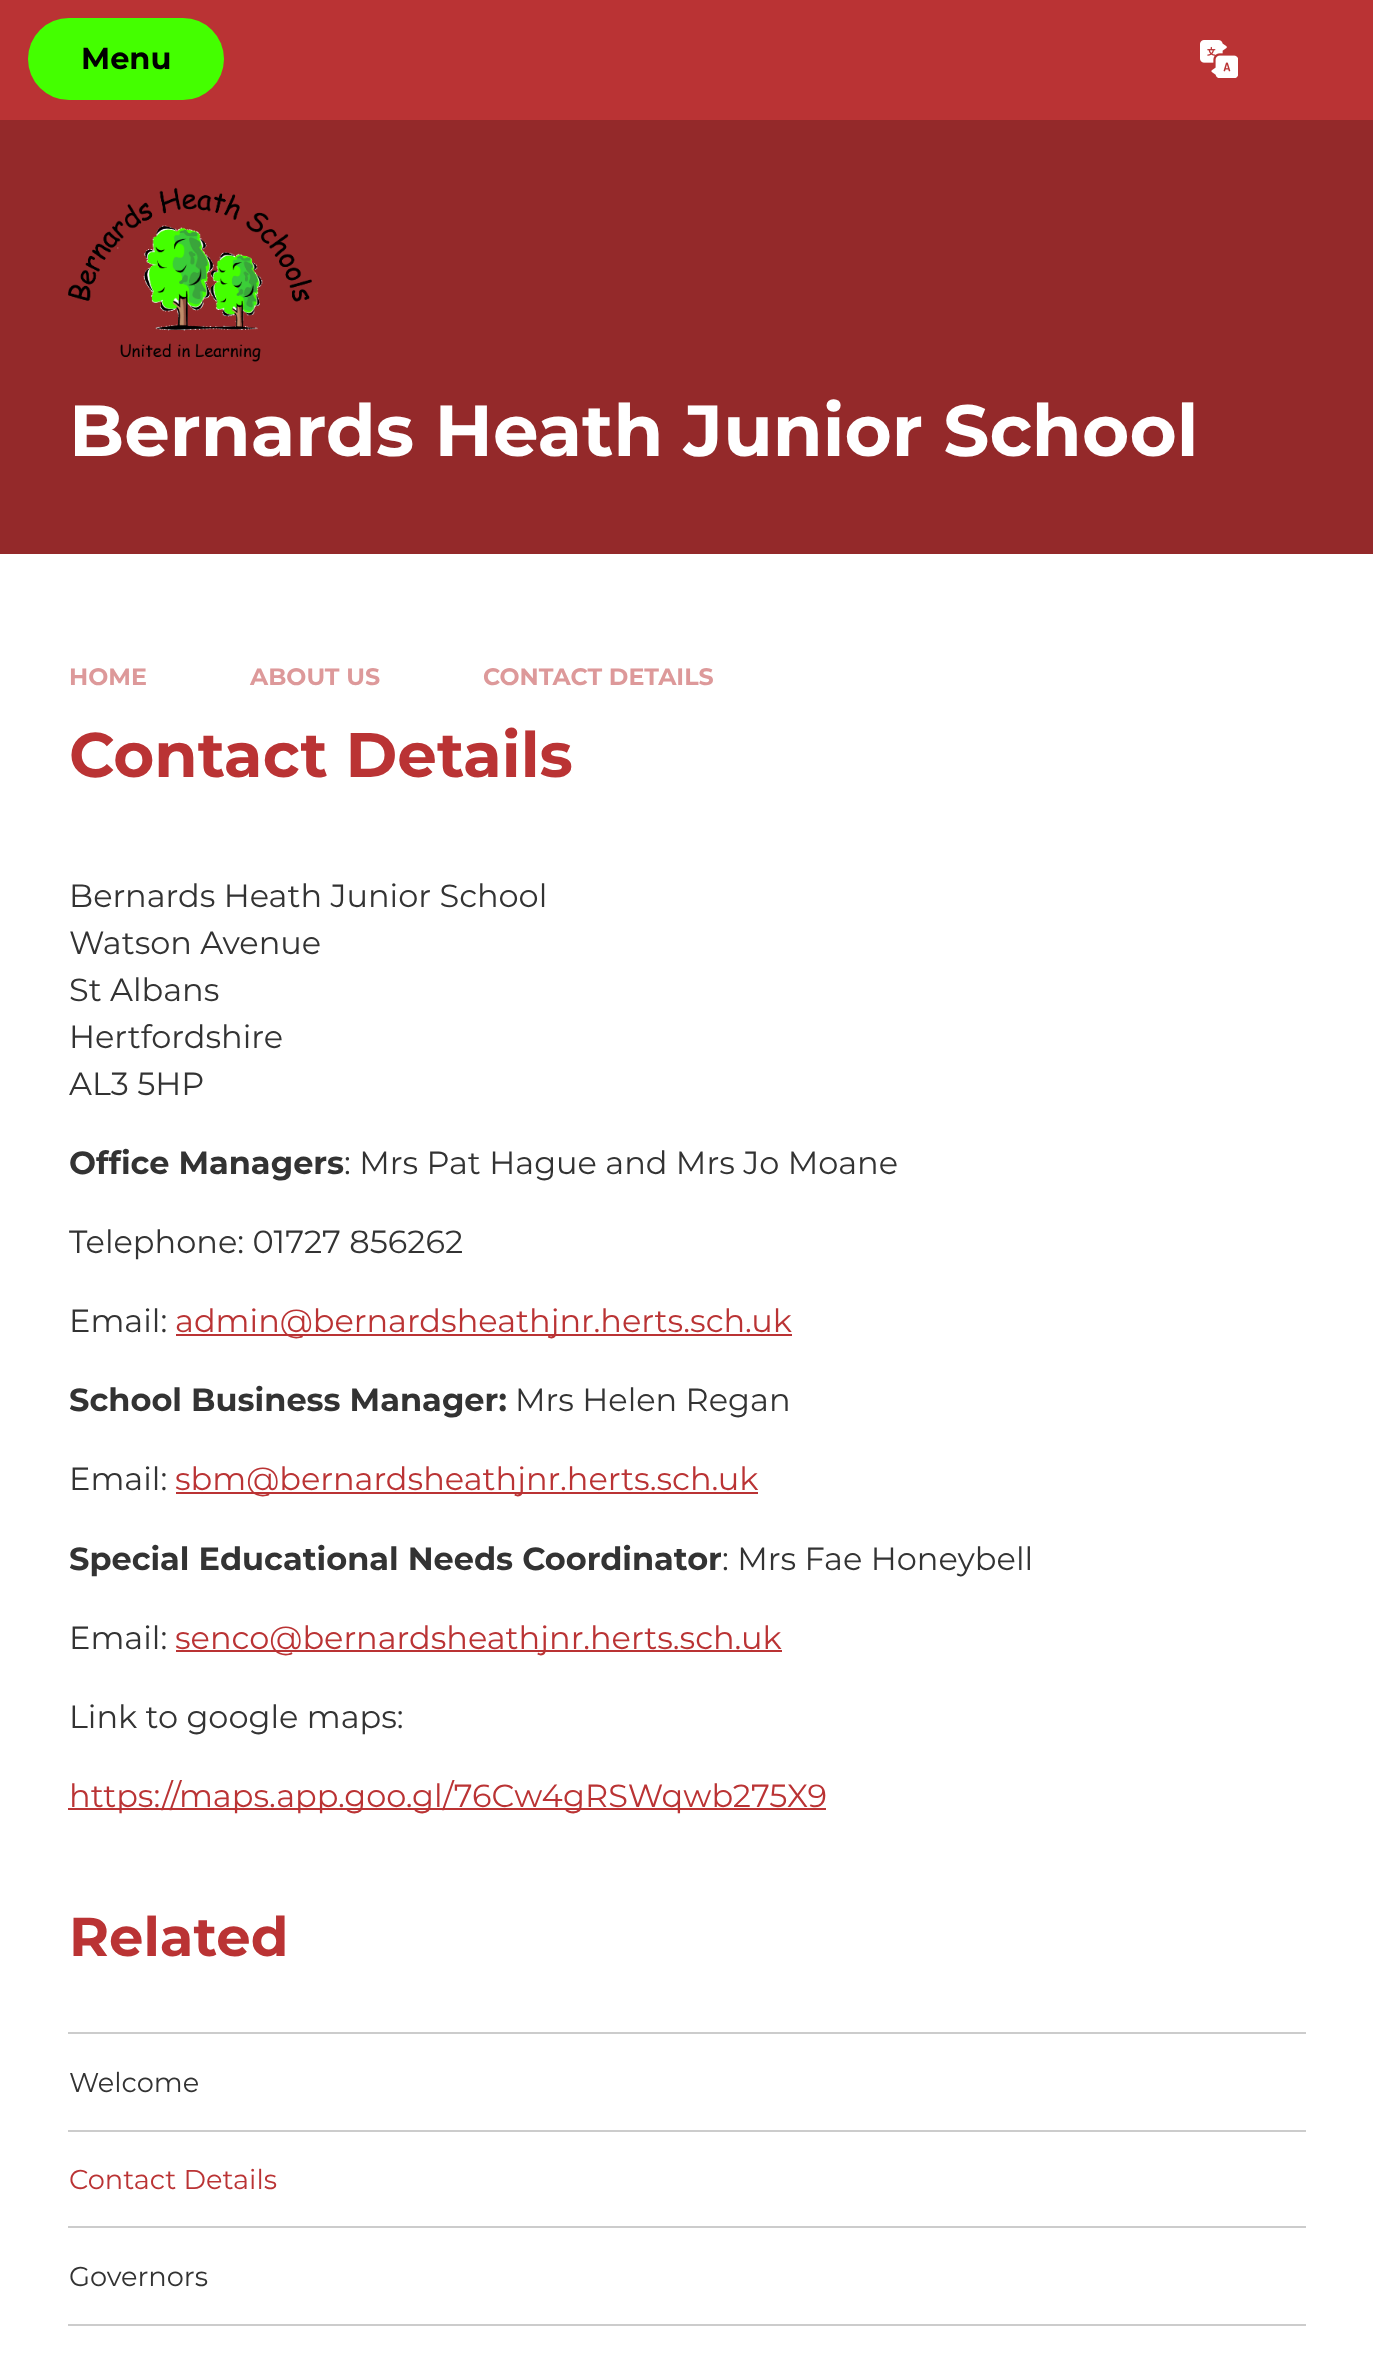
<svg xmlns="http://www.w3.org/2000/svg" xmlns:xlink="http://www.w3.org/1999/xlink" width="1373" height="2376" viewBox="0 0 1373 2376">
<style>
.cls-1{font:bold 30.5px Montserrat;fill:#000000}
.cls-2{font:bold 72.25px Montserrat;fill:#ffffff}
.cls-3{font:bold 23.75px Montserrat;fill:#dd999a}
.cls-4{font:bold 62.75px Montserrat;fill:#ba3334}
.cls-5{font:32px Montserrat;fill:#333333}
.cls-6{font:bold 32px Montserrat;fill:#333333}
.cls-7{font:32px Montserrat;fill:#ba3334}
.cls-8{font:bold 54.5px Montserrat;fill:#ba3334}
.cls-9{font:27.25px Montserrat;fill:#333333}
.cls-10{font:27.25px Montserrat;fill:#ba3334}
</style>
<rect width="100%" height="100%" fill="#ffffff"/>
<rect fill="#ba3334" x="0" y="0" width="1373" height="120"/>
<rect fill="#44ff00" x="28" y="18" width="196" height="82" rx="41"/>
<image xlink:href="image0.png" x="1200" y="40" width="38" height="38"/>
<rect fill="#94292a" x="0" y="120" width="1373" height="434"/>
<image xlink:href="image1.png" x="68" y="187" width="244" height="175"/>
<rect fill="#ba3334" x="176" y="1334" width="616" height="2"/>
<rect fill="#ba3334" x="176" y="1492" width="582" height="2"/>
<rect fill="#ba3334" x="176" y="1650" width="606" height="2"/>
<rect fill="#ba3334" x="68" y="1808" width="758" height="2"/>
<rect fill="#cccccc" x="68" y="2032" width="1238" height="2"/>
<rect fill="#cccccc" x="68" y="2130" width="1238" height="2"/>
<rect fill="#cccccc" x="68" y="2226" width="1238" height="2"/>
<rect fill="#cccccc" x="68" y="2324" width="1238" height="2"/>
<text class="cls-1" x="81" y="69">Menu</text>
<text class="cls-2" x="69" y="456">Bernards Heath Junior School</text>
<text class="cls-3" x="69" y="685">HOME</text>
<text class="cls-3" x="250" y="685">ABOUT US</text>
<text class="cls-3" x="483" y="685">CONTACT DETAILS</text>
<text class="cls-4" x="69" y="777">Contact Details</text>
<text class="cls-5"><tspan x="69" y="907">Bernards Heath Junior School</tspan><tspan x="69" y="954">Watson Avenue</tspan><tspan x="69" y="1001">St Albans</tspan><tspan x="69" y="1048">Hertfordshire</tspan><tspan x="69" y="1095">AL3 5HP</tspan></text>
<text class="cls-6" x="69" y="1174">Office Managers</text>
<text class="cls-5" x="344" y="1174">: Mrs Pat Hague and Mrs Jo Moane</text>
<text class="cls-5" x="69" y="1253">Telephone: 01727 856262</text>
<text class="cls-5" x="69" y="1332">Email:</text>
<text class="cls-7" x="175" y="1332">admin@bernardsheathjnr.herts.sch.uk</text>
<text class="cls-6" x="69" y="1411">School Business Manager:</text>
<text class="cls-5" x="515" y="1411">Mrs Helen Regan</text>
<text class="cls-5" x="69" y="1490">Email:</text>
<text class="cls-7" x="175" y="1490">sbm@bernardsheathjnr.herts.sch.uk</text>
<text class="cls-6" x="69" y="1570">Special Educational Needs Coordinator</text>
<text class="cls-5" x="722" y="1570">: Mrs Fae Honeybell</text>
<text class="cls-5" x="69" y="1649">Email:</text>
<text class="cls-7" x="175" y="1649">senco@bernardsheathjnr.herts.sch.uk</text>
<text class="cls-5" x="69" y="1728">Link to google maps:</text>
<text class="cls-7" x="69" y="1807">https://maps.app.goo.gl/76Cw4gRSWqwb275X9</text>
<text class="cls-8" x="69" y="1956">Related</text>
<text class="cls-9" x="69" y="2092">Welcome</text>
<text class="cls-10" x="69" y="2189">Contact Details</text>
<text class="cls-9" x="69" y="2286">Governors</text>
</svg>
